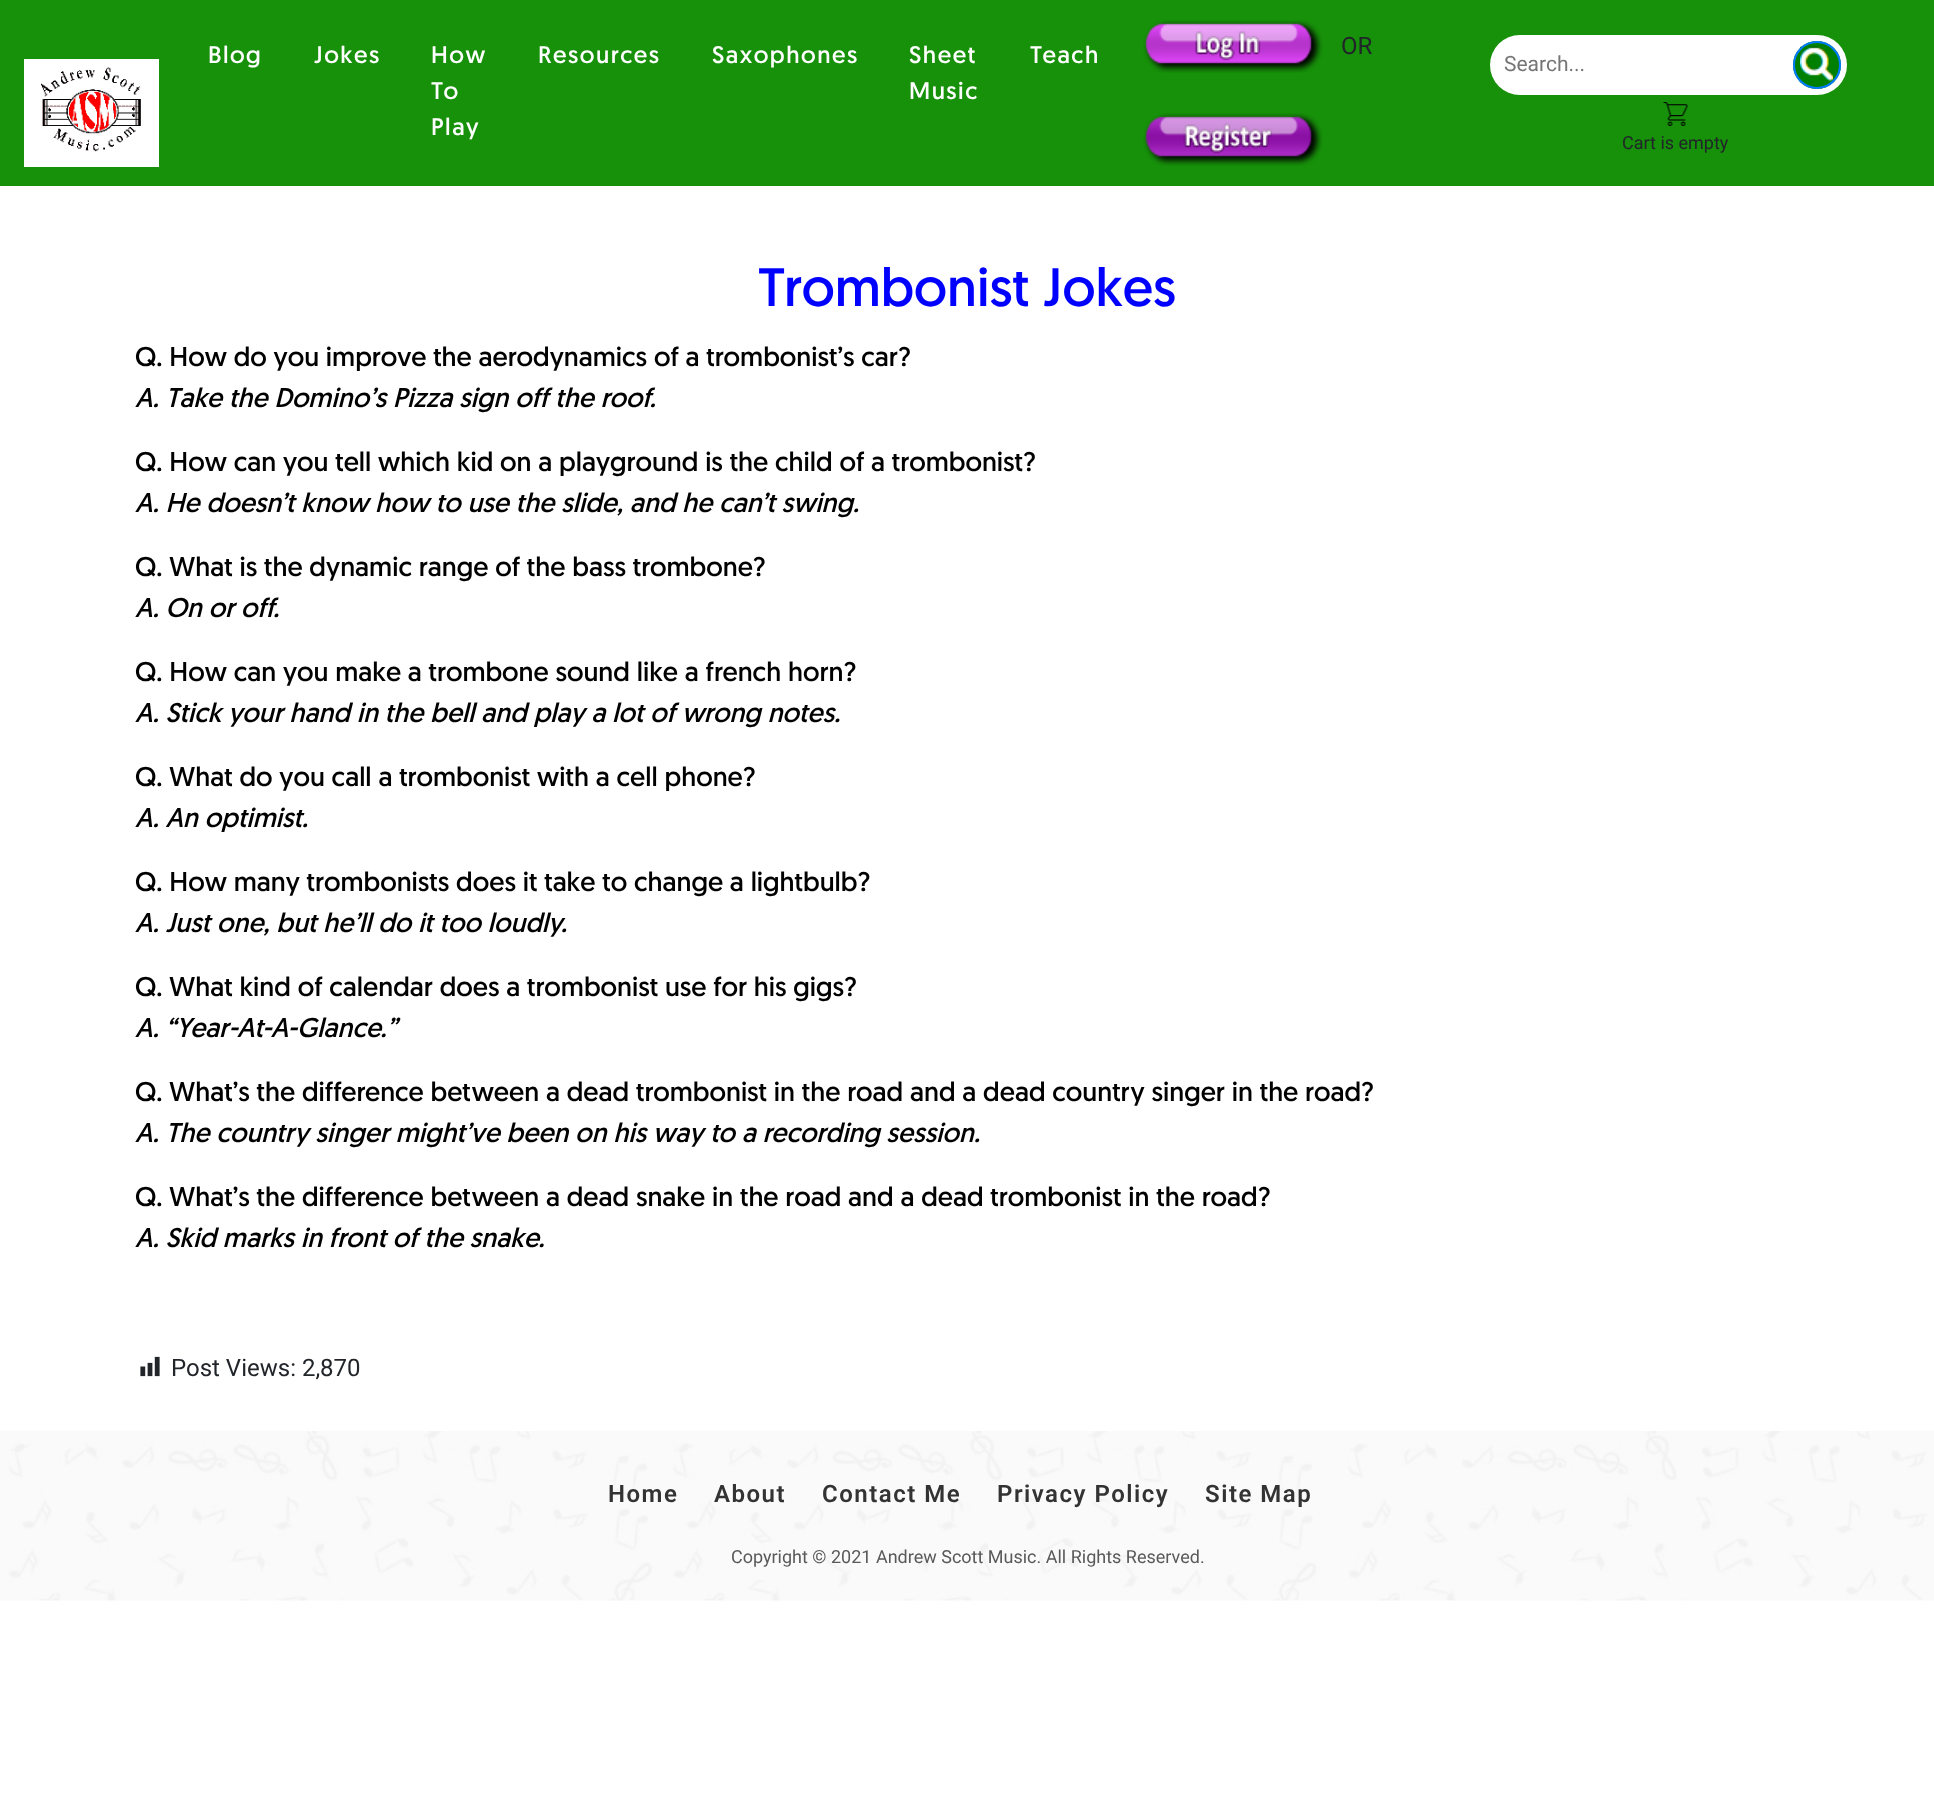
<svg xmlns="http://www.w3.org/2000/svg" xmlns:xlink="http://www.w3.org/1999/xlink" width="1934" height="1812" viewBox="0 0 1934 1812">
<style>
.cls-1{font:24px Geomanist;letter-spacing:1.5px;fill:#ffffff}
.cls-2{font:24px Roboto;fill:#212529}
.cls-3{font:21px Roboto;fill:#757575}
.cls-4{font:18px Roboto;fill:#212529}
.cls-5{font:54px Geomanist;fill:#0000ff}
.cls-6{font:27px Geomanist;fill:#000000}
.cls-7{font:italic 27px Geomanist;fill:#000000}
.cls-8{font:600 24px Roboto;letter-spacing:1.5px;fill:#333333}
.cls-9{font:18px Roboto;fill:#595959}
</style>
<rect width="100%" height="100%" fill="#ffffff"/>
<rect fill="#17910a" x="0" y="0" width="1934" height="186"/>
<rect fill="#ffffff" x="24" y="59" width="135" height="108"/>
<image xlink:href="image0.png" x="41" y="67" width="100" height="85"/>
<image xlink:href="image1.png" x="1143" y="20" width="180" height="53"/>
<image xlink:href="image2.png" x="1143" y="113" width="180" height="53"/>
<rect fill="#ffffff" x="1490" y="35" width="357" height="60" rx="30"/>
<circle fill="#008000" cx="1817" cy="65" r="24"/>
<image xlink:href="image3.png" x="1800" y="46" width="33" height="37"/>
<circle fill="none" stroke="#007bff" stroke-width="2" cx="1817" cy="65" r="23"/>
<image xlink:href="image4.png" x="1663" y="102" width="25" height="24"/>
<image xlink:href="image5.png" x="140" y="1356" width="20" height="21"/>
<image xlink:href="image6.png" x="0" y="1431" width="1934" height="170"/>
<text class="cls-1" x="208" y="63">Blog</text>
<text class="cls-1" x="314" y="63">Jokes</text>
<text class="cls-1"><tspan x="431" y="63">How</tspan><tspan x="431" y="99">To</tspan><tspan x="431" y="135">Play</tspan></text>
<text class="cls-1" x="538" y="63">Resources</text>
<text class="cls-1" x="712" y="63">Saxophones</text>
<text class="cls-1"><tspan x="909" y="63">Sheet</tspan><tspan x="909" y="99">Music</tspan></text>
<text class="cls-1" x="1030" y="63">Teach</text>
<text class="cls-2" x="1341" y="54">OR</text>
<text class="cls-3" x="1504" y="71">Search...</text>
<text class="cls-4" x="1622" y="149">Cart is empty</text>
<text class="cls-5" x="758" y="306">Trombonist Jokes</text>
<text class="cls-6" x="135" y="366">Q. How do you improve the aerodynamics of a trombonist’s car?</text>
<text class="cls-7" x="135" y="407">A. Take the Domino’s Pizza sign off the roof.</text>
<text class="cls-6" x="135" y="471">Q. How can you tell which kid on a playground is the child of a trombonist?</text>
<text class="cls-7" x="135" y="512">A. He doesn’t know how to use the slide, and he can’t swing.</text>
<text class="cls-6" x="135" y="576">Q. What is the dynamic range of the bass trombone?</text>
<text class="cls-7" x="135" y="617">A. On or off.</text>
<text class="cls-6" x="135" y="681">Q. How can you make a trombone sound like a french horn?</text>
<text class="cls-7" x="135" y="722">A. Stick your hand in the bell and play a lot of wrong notes.</text>
<text class="cls-6" x="135" y="786">Q. What do you call a trombonist with a cell phone?</text>
<text class="cls-7" x="135" y="827">A. An optimist.</text>
<text class="cls-6" x="135" y="891">Q. How many trombonists does it take to change a lightbulb?</text>
<text class="cls-7" x="135" y="932">A. Just one, but he’ll do it too loudly.</text>
<text class="cls-6" x="135" y="996">Q. What kind of calendar does a trombonist use for his gigs?</text>
<text class="cls-7" x="135" y="1037">A. “Year-At-A-Glance.”</text>
<text class="cls-6" x="135" y="1101">Q. What’s the difference between a dead trombonist in the road and a dead country singer in the road?</text>
<text class="cls-7" x="135" y="1142">A. The country singer might’ve been on his way to a recording session.</text>
<text class="cls-6" x="135" y="1206">Q. What’s the difference between a dead snake in the road and a dead trombonist in the road?</text>
<text class="cls-7" x="135" y="1247">A. Skid marks in front of the snake.</text>
<text class="cls-2" x="171" y="1376">Post Views: 2,870</text>
<text class="cls-8" x="608" y="1502">Home</text>
<text class="cls-8" x="714" y="1502">About</text>
<text class="cls-8" x="822" y="1502">Contact Me</text>
<text class="cls-8" x="997" y="1502">Privacy Policy</text>
<text class="cls-8" x="1205" y="1502">Site Map</text>
<text class="cls-9" x="731" y="1563">Copyright © 2021 Andrew Scott Music. All Rights Reserved.</text>
</svg>
